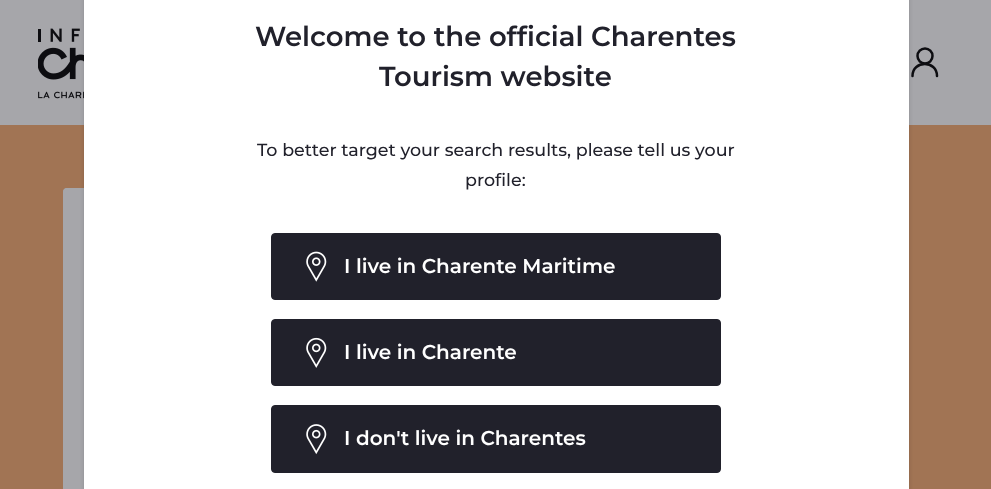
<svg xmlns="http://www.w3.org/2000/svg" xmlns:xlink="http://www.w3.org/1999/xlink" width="991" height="489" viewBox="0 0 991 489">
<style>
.cls-1{font:600 27.5px Montserrat;fill:#21212b}
.cls-2{font:500 17.5px Montserrat;fill:#21212b}
.cls-3{font:600 20px Montserrat;fill:#ffffff}
</style>
<rect width="100%" height="100%" fill="#a6a6aa"/>
<image xlink:href="image3.png" x="38" y="28" width="46" height="71"/>
<circle fill="none" stroke="#0d0d11" stroke-width="2.5" cx="925" cy="56" r="7.5"/>
<path fill="none" stroke="#0d0d11" stroke-width="2.5" stroke-linecap="round" d="M937 76C937 60 912.5 60 912.5 76"/>
<rect fill="#a17454" x="0" y="125" width="991" height="364"/>
<rect fill="#a6a6aa" x="63" y="188" width="450" height="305" rx="4"/>
<path fill="#a6a6aa" d="M67 188H509C511 188 513 190 513 192V310H63V192C63 190 65 188 67 188Z"/>
<rect fill="#000000" fill-opacity="0.15" filter="blur(2px)" x="84" y="-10" width="825" height="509" rx="4"/>
<rect fill="#ffffff" x="84" y="0" width="825" height="489"/>
<rect fill="#21212b" stroke="#21212b" x="271.5" y="233.5" width="449" height="66" rx="3.5"/>
<image xlink:href="image0.png" x="306" y="251" width="21" height="31"/>
<rect fill="#21212b" stroke="#21212b" x="271.5" y="319.5" width="449" height="66" rx="3.5"/>
<image xlink:href="image1.png" x="306" y="337" width="21" height="31"/>
<rect fill="#21212b" stroke="#21212b" x="271.5" y="405.5" width="449" height="67" rx="3.5"/>
<image xlink:href="image2.png" x="306" y="424" width="21" height="31"/>
<text class="cls-1" x="255" y="46">Welcome to the official Charentes</text>
<text class="cls-1" x="379" y="86">Tourism website</text>
<text class="cls-2" x="257" y="156">To better target your search results, please tell us your</text>
<text class="cls-2" x="465" y="186">profile:</text>
<text class="cls-3" x="344" y="273">I live in Charente Maritime</text>
<text class="cls-3" x="344" y="359">I live in Charente</text>
<text class="cls-3" x="344" y="445">I don't live in Charentes</text>
</svg>
